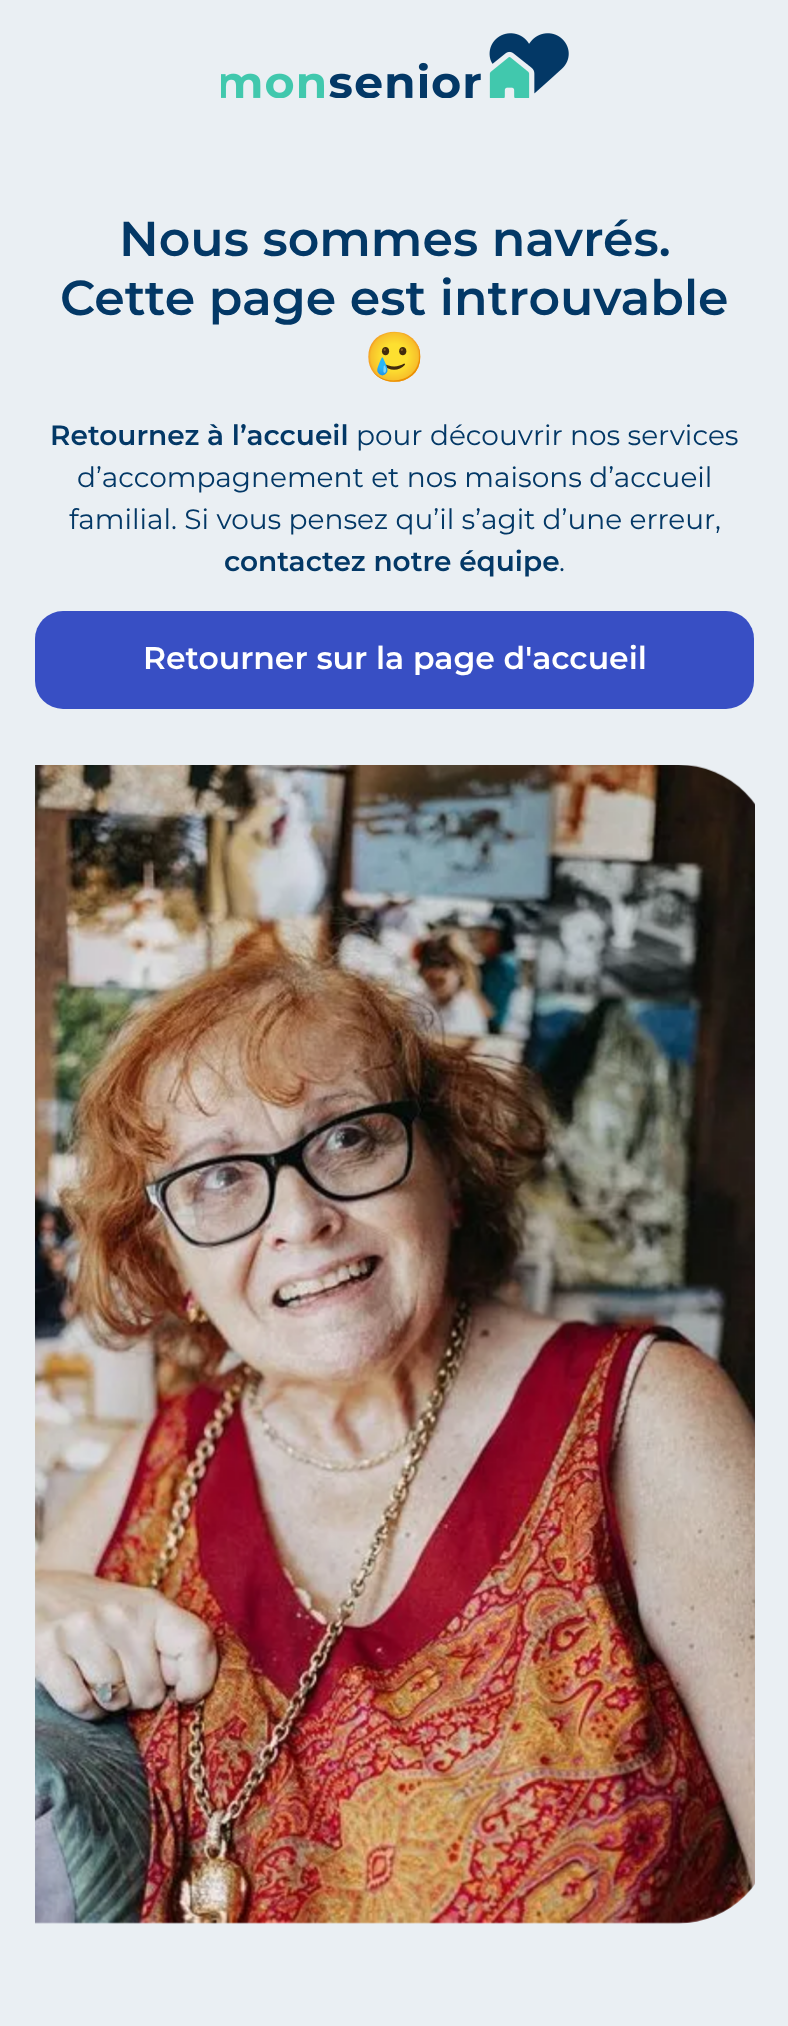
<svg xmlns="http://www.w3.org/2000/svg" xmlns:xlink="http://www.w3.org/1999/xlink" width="788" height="2026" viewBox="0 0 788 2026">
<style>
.cls-1{font:600 49px Montserrat;fill:#033866}
.cls-2{font:bold 49px Noto Color Emoji;fill:#033866}
.cls-3{font:600 28px Montserrat;fill:#033866}
.cls-4{font:28px Montserrat;fill:#033866}
.cls-5{font:600 31.5px Montserrat;fill:#ffffff}
</style>
<rect width="100%" height="100%" fill="#eaeff3"/>
<image xlink:href="image0.png" x="221" y="33" width="348" height="65"/>
<rect fill="#384fc4" x="35" y="611" width="719" height="98" rx="28"/>
<image xlink:href="image1.png" x="35" y="765" width="720" height="1159"/>
<text class="cls-1" x="119" y="256">Nous sommes navrés.</text>
<text class="cls-1" x="60" y="315">Cette page est introuvable</text>
<text class="cls-2" x="364" y="374">🥲</text>
<text class="cls-3" x="50" y="445">Retournez à l’accueil</text>
<text class="cls-4" x="356" y="445">pour découvrir nos services</text>
<text class="cls-4" x="77" y="487">d’accompagnement et nos maisons d’accueil</text>
<text class="cls-4" x="69" y="529">familial. Si vous pensez qu’il s’agit d’une erreur,</text>
<text class="cls-3" x="224" y="571">contactez notre équipe</text>
<text class="cls-4" x="559" y="571">.</text>
<text class="cls-5" x="143" y="669">Retourner sur la page d'accueil</text>
</svg>
